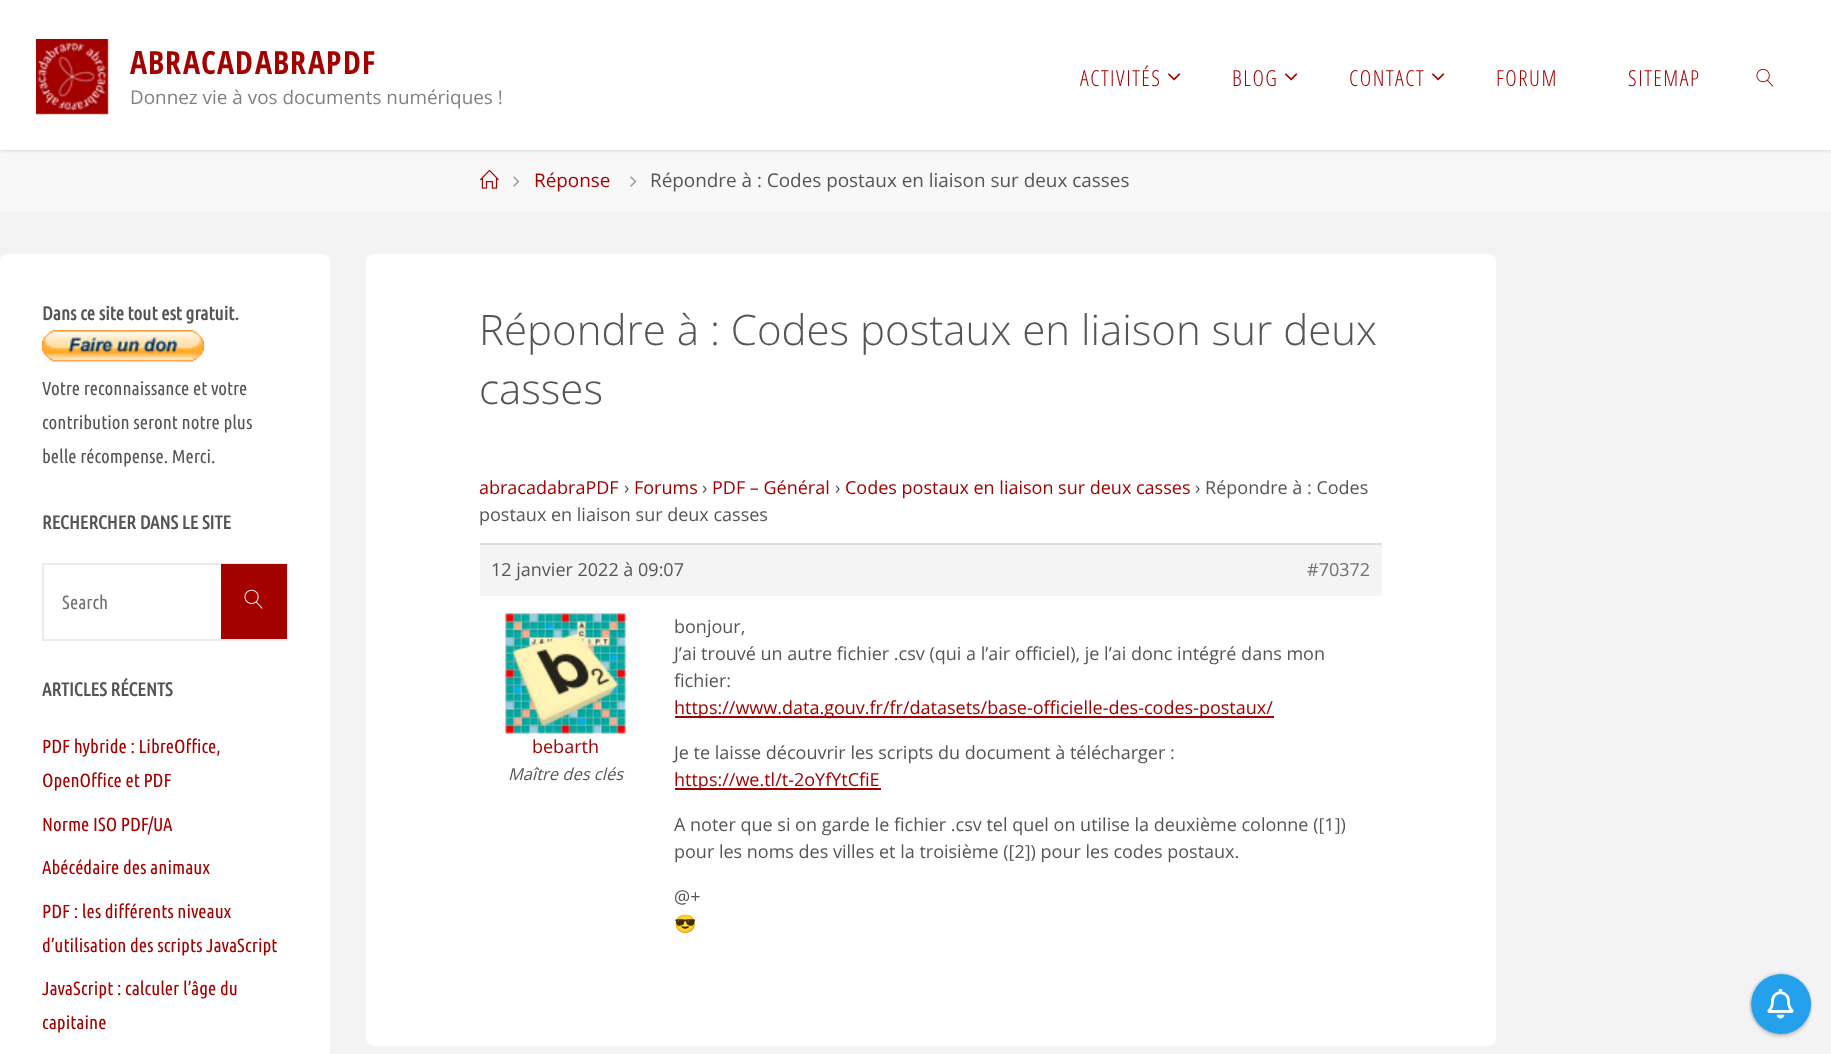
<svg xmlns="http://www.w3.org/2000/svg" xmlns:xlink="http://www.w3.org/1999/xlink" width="1831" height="1054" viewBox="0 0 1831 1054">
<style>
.cls-1{font:bold 32px Open Sans Condensed;fill:#a30000}
.cls-2{font:18.9px Open Sans;fill:#808080}
.cls-3{font:300 22px Open Sans Condensed;letter-spacing:1.5px;fill:#a30000}
.cls-4{font:18.9px Open Sans;fill:#a30000}
.cls-5{font:18.9px Open Sans;fill:#555555}
.cls-6{font:bold 18.9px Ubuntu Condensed;fill:#555555}
.cls-7{font:18.9px Ubuntu Condensed;fill:#555555}
.cls-8{font:18.9px Ubuntu Condensed;fill:#707070}
.cls-9{font:18.9px Ubuntu Condensed;fill:#a30000}
.cls-10{font:300 42px Open Sans;fill:#555555}
.cls-11{font:18px Open Sans;fill:#a30000}
.cls-12{font:18px Open Sans;fill:#555555}
.cls-13{font:18px Open Sans;fill:#707070}
.cls-14{font:italic 16.5px Open Sans;fill:#555555}
.cls-15{font:18px Noto Color Emoji;fill:#555555}
</style>
<rect width="100%" height="100%" fill="#f3f3f3"/>
<rect fill="#f8f8f8" x="0" y="150" width="1831" height="62"/>
<rect fill="#000000" fill-opacity="0.2" filter="blur(2px)" x="0" y="0" width="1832" height="150"/>
<rect fill="#ffffff" x="0" y="0" width="1831" height="150"/>
<image xlink:href="image0.png" x="36" y="39" width="73" height="76"/>
<image xlink:href="image1.png" x="1168" y="73" width="13" height="8"/>
<image xlink:href="image1.png" x="1285" y="73" width="13" height="8"/>
<image xlink:href="image1.png" x="1432" y="73" width="13" height="8"/>
<image xlink:href="image2.png" x="1756" y="68" width="18" height="19"/>
<image xlink:href="image3.png" x="480" y="169" width="19" height="20"/>
<image xlink:href="image4.png" x="513" y="176" width="7" height="11"/>
<image xlink:href="image4.png" x="630" y="176" width="7" height="11"/>
<rect fill="#ffffff" x="0" y="254" width="330" height="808" rx="8"/>
<image xlink:href="image5.png" x="42" y="330" width="162" height="32"/>
<rect fill="none" stroke="#ebebeb" stroke-width="2" x="43" y="564" width="244" height="76"/>
<rect fill="#a30000" x="221" y="564" width="66" height="75"/>
<image xlink:href="image6.png" x="244" y="589" width="19" height="20"/>
<rect fill="#ffffff" x="366" y="254" width="1130" height="792" rx="8"/>
<rect fill="#f4f4f4" x="480" y="545" width="902" height="51"/>
<rect fill="#dddddd" x="480" y="543" width="902" height="2"/>
<image xlink:href="image7.png" x="505" y="613" width="121" height="121"/>
<rect fill="#a30000" x="675" y="716" width="599" height="2"/>
<rect fill="#a30000" x="675" y="788" width="206" height="2"/>
<circle fill="none" stroke="#e0e0e0" stroke-width="2" cx="1780.5" cy="1003.5" r="30.5"/>
<rect fill="#000000" fill-opacity="0.16" filter="blur(1.5px)" x="1751" y="977" width="60" height="60" rx="30"/>
<circle fill="#24a0ed" cx="1781" cy="1004" r="30"/>
<image xlink:href="image8.png" x="1767" y="989" width="27" height="30"/>
<text class="cls-1" x="130" y="74">A</text>
<text class="cls-1" x="148" y="74">B</text>
<text class="cls-1" x="165" y="74">R</text>
<text class="cls-1" x="183" y="74">A</text>
<text class="cls-1" x="201" y="74">C</text>
<text class="cls-1" x="217" y="74">A</text>
<text class="cls-1" x="235" y="74">D</text>
<text class="cls-1" x="255" y="74">A</text>
<text class="cls-1" x="273" y="74">B</text>
<text class="cls-1" x="290" y="74">R</text>
<text class="cls-1" x="308" y="74">A</text>
<text class="cls-1" x="326" y="74">P</text>
<text class="cls-1" x="343" y="74">D</text>
<text class="cls-1" x="362" y="74">F</text>
<text class="cls-2" x="130" y="104">Donnez vie à vos documents numériques !</text>
<text class="cls-3" x="1080" y="86">ACTIVITÉS</text>
<text class="cls-3" x="1232" y="86">BLOG</text>
<text class="cls-3" x="1349" y="86">CONTACT</text>
<text class="cls-3" x="1496" y="86">FORUM</text>
<text class="cls-3" x="1628" y="86">SITEMAP</text>
<text class="cls-4" x="534" y="187">Réponse</text>
<text class="cls-5" x="650" y="187">Répondre à : Codes postaux en liaison sur deux casses</text>
<text class="cls-6" x="42" y="320">Dans ce site tout est gratuit.</text>
<text class="cls-7"><tspan x="42" y="395">Votre reconnaissance et votre</tspan><tspan x="42" y="429">contribution seront notre plus</tspan><tspan x="42" y="463">belle récompense. Merci.</tspan></text>
<text class="cls-6" x="42" y="529">RECHERCHER DANS LE SITE</text>
<text class="cls-8" x="62" y="609">Search</text>
<text class="cls-6" x="42" y="696">ARTICLES RÉCENTS</text>
<text class="cls-9"><tspan x="42" y="753">PDF hybride : LibreOffice,</tspan><tspan x="42" y="787">OpenOffice et PDF</tspan></text>
<text class="cls-9" x="42" y="831">Norme ISO PDF/UA</text>
<text class="cls-9" x="42" y="874">Abécédaire des animaux</text>
<text class="cls-9"><tspan x="42" y="918">PDF : les différents niveaux</tspan><tspan x="42" y="952">d’utilisation des scripts JavaScript</tspan></text>
<text class="cls-9"><tspan x="42" y="995">JavaScript : calculer l’âge du</tspan><tspan x="42" y="1029">capitaine</tspan></text>
<text class="cls-10"><tspan x="479" y="345">Répondre à : Codes postaux en liaison sur deux</tspan><tspan x="479" y="404">casses</tspan></text>
<text class="cls-11" x="479" y="494">abracadabraPDF</text>
<text class="cls-12" x="624" y="494">›</text>
<text class="cls-11" x="634" y="494">Forums</text>
<text class="cls-12" x="702" y="494">›</text>
<text class="cls-11" x="712" y="494">PDF – Général</text>
<text class="cls-12" x="835" y="494">›</text>
<text class="cls-11" x="845" y="494">Codes postaux en liaison sur deux casses</text>
<text class="cls-12" x="1195" y="494">› Répondre à : Codes</text>
<text class="cls-12" x="479" y="521">postaux en liaison sur deux casses</text>
<text class="cls-12" x="491" y="576">12 janvier 2022 à 09:07</text>
<text class="cls-13" x="1307" y="576">#70372</text>
<text class="cls-11" x="532" y="753">bebarth</text>
<text class="cls-14" x="508" y="780">Maître des clés</text>
<text class="cls-12"><tspan x="674" y="633">bonjour,</tspan><tspan x="674" y="660">J’ai trouvé un autre fichier .csv (qui a l’air officiel), je l’ai donc intégré dans mon</tspan><tspan x="674" y="687">fichier:</tspan></text>
<text class="cls-11" x="674" y="714">https://www.data.gouv.fr/fr/datasets/base-officielle-des-codes-postaux/</text>
<text class="cls-12" x="674" y="759">Je te laisse découvrir les scripts du document à télécharger :</text>
<text class="cls-11" x="674" y="786">https://we.tl/t-2oYfYtCfiE</text>
<text class="cls-12"><tspan x="674" y="831">A noter que si on garde le fichier .csv tel quel on utilise la deuxième colonne ([1])</tspan><tspan x="674" y="858">pour les noms des villes et la troisième ([2]) pour les codes postaux.</tspan></text>
<text class="cls-12" x="674" y="903">@+</text>
<text class="cls-15" x="674" y="930">😎</text>
</svg>
